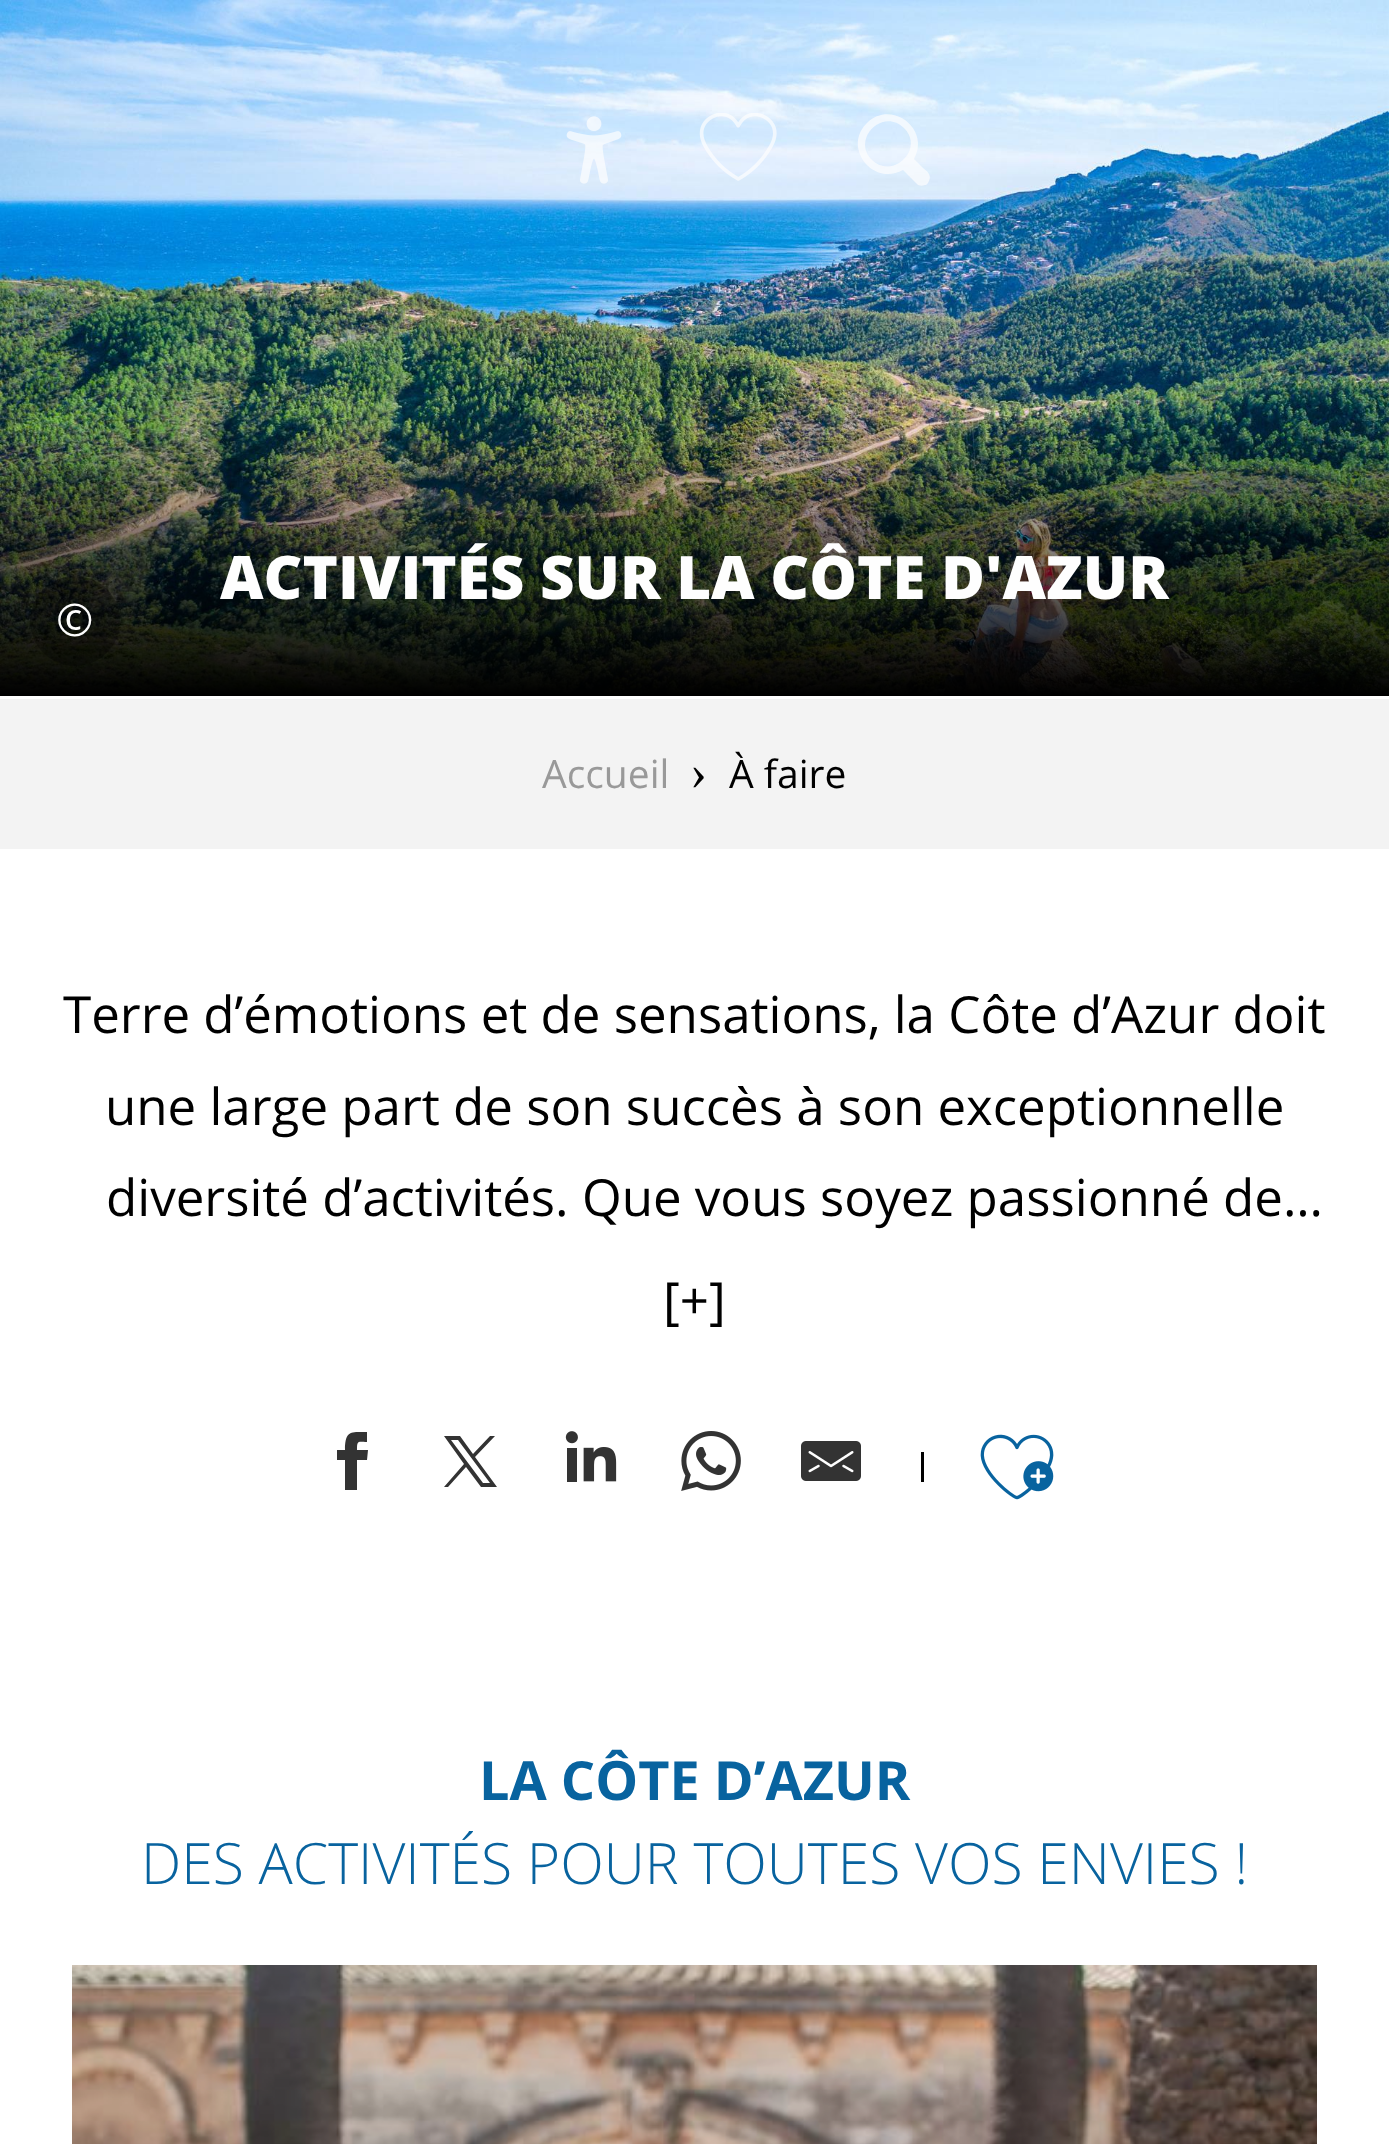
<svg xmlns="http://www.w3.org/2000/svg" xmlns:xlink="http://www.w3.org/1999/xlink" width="1389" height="2144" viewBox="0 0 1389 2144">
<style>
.cls-1{font:800 60px Open Sans;fill:#fefefe}
.cls-2{font:45px Open Sans;fill:#fefefe}
.cls-3{font:39px Open Sans;fill:#999999}
.cls-4{font:51px Liberation Serif;fill:#000000}
.cls-5{font:39px Open Sans;fill:#000000}
.cls-6{font:51px Open Sans;fill:#000000}
.cls-7{font:bold 54px Open Sans;fill:#08639f}
.cls-8{font:300 57px Open Sans;fill:#08639f}
</style>
<rect width="100%" height="100%" fill="#ffffff"/>
<image xlink:href="image2.png" x="0" y="0" width="1389" height="696"/>
<image xlink:href="image0.png" x="566" y="116" width="56" height="68"/>
<image xlink:href="image1.png" x="699" y="113" width="78" height="68"/>
<path fill="#fefefe" fill-opacity="0.7" d="M867 123C891 99 931 129 914 159L923 168C927 171 932 175 929 181C928 183 927 185 925 185C923 186 920 186 918 185L903 170C873 187 842 147 867 123ZM872 160C893 180 925 149 904 128C883 107 851 139 872 160Z"/>
<circle fill="#000000" fill-opacity="0.3" cx="75" cy="621" r="45"/>
<rect fill="#f3f3f3" x="0" y="699" width="1389" height="150"/>
<path fill="#333333" d="M368 1450H357C357 1440 358 1442 367 1442V1432C351 1432 345 1430 345 1450H337V1460H345V1490H357V1460H367Z"/>
<path fill="#333333" d="M444 1436L464 1464L444 1487H448L466 1467L481 1487H497L475 1457L495 1436H490L473 1454L460 1436ZM451 1440H458L490 1483H483Z"/>
<image xlink:href="image3.png" x="565" y="1431" width="52" height="51"/>
<image xlink:href="image4.png" x="681" y="1431" width="60" height="60"/>
<image xlink:href="image5.png" x="801" y="1441" width="60" height="40"/>
<rect fill="#000000" x="921" y="1452" width="3" height="30"/>
<image xlink:href="image6.png" x="980" y="1434" width="74" height="66"/>
<image xlink:href="image7.png" x="72" y="1965" width="1245" height="179"/>
<text class="cls-1" x="220" y="599">ACTIVITÉS SUR LA CÔTE D'AZUR</text>
<text class="cls-2" x="56" y="636">©</text>
<text class="cls-3" x="542" y="788">Accueil</text>
<text class="cls-4" x="690" y="789">›</text>
<text class="cls-5" x="729" y="788">À faire</text>
<text class="cls-6" x="63" y="1033">Terre d’émotions et de sensations, la Côte d’Azur doit</text>
<text class="cls-6" x="105" y="1125">une large part de son succès à son exceptionnelle</text>
<text class="cls-6" x="106" y="1216">diversité d’activités. Que vous soyez passionné de…</text>
<text class="cls-6" x="663" y="1319">[+]</text>
<text class="cls-7" x="479" y="1800">LA CÔTE D’AZUR</text>
<text class="cls-8" x="141" y="1884">DES ACTIVITÉS POUR TOUTES VOS ENVIES !</text>
</svg>
